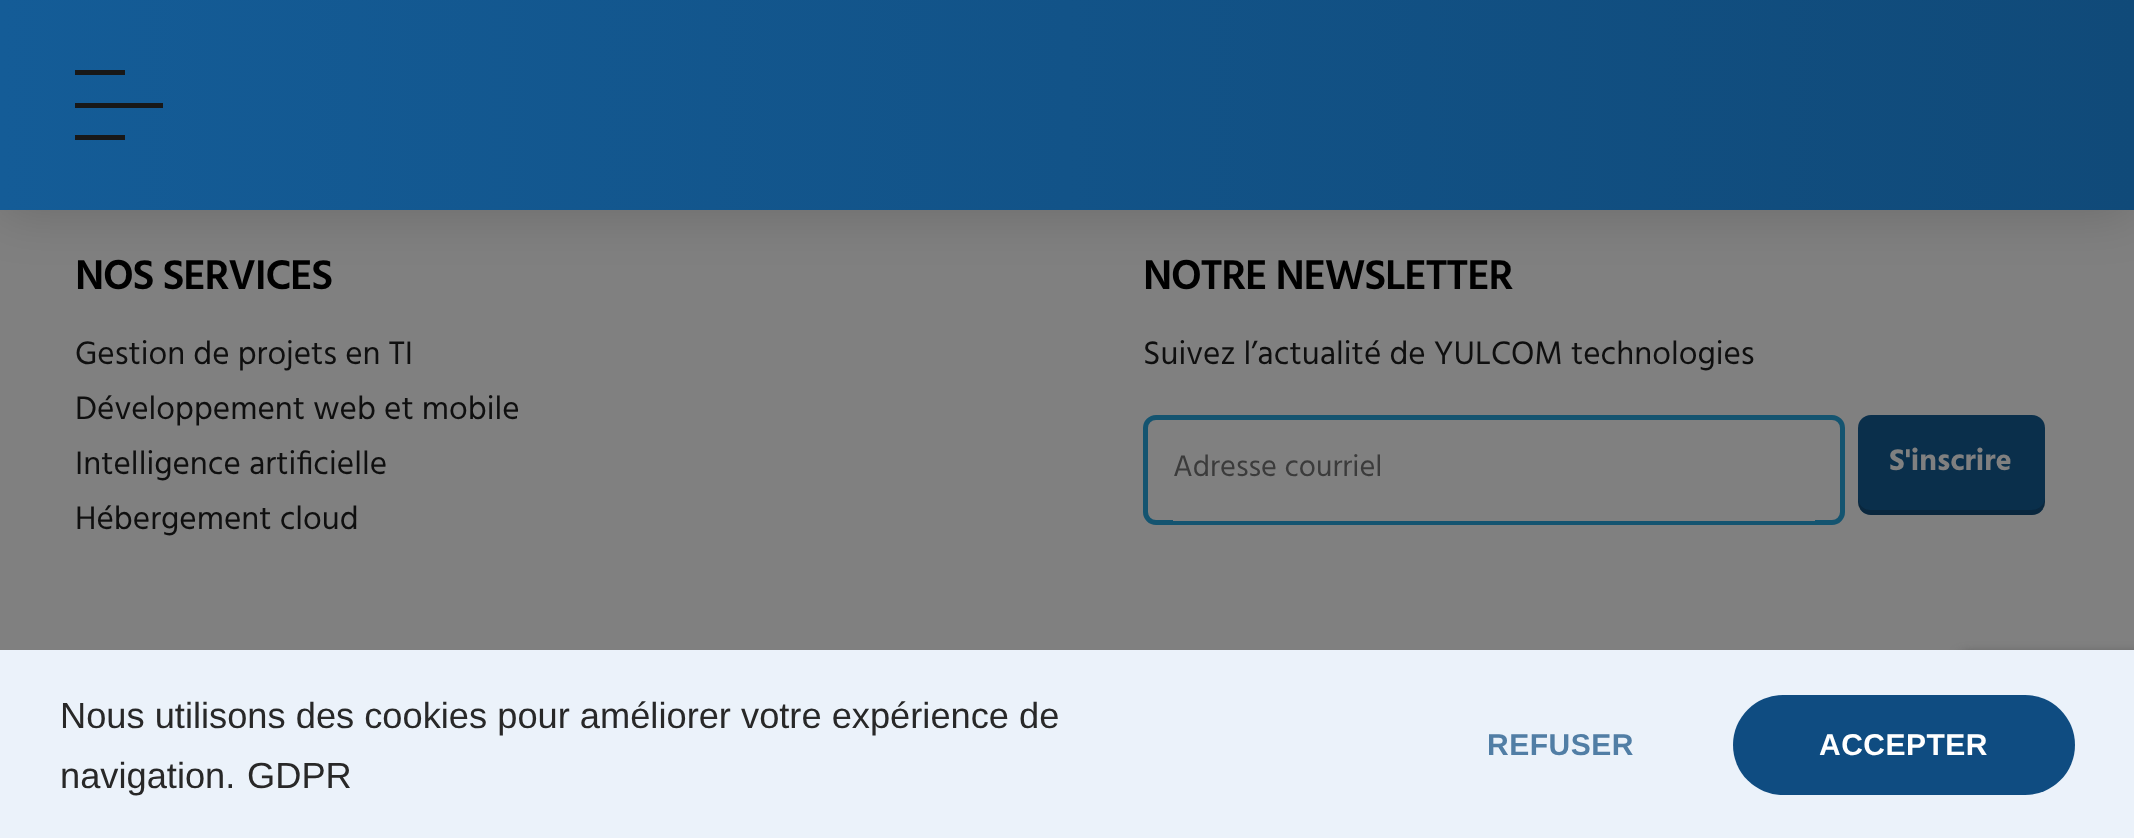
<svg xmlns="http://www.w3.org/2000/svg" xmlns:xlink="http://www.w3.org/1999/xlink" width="2134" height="838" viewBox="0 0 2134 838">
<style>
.cls-1{font:600 42.5px Hind;letter-spacing:-1.25px;fill:#000000}
.cls-2{font:33.3px Hind;fill:#0f0f0f}
.cls-3{font:30.5px Hind;fill:#3b3b3b}
.cls-4{font:bold 30.5px Hind;fill:#808080}
.cls-5{font:36.25px Liberation Sans;fill:#282828}
.cls-6{font:bold 30px Liberation Sans;letter-spacing:0.5px;fill:#517ea5}
.cls-7{font:bold 30px Liberation Sans;letter-spacing:0.5px;fill:#ffffff}
</style>
<defs>
<linearGradient id="g1" gradientUnits="userSpaceOnUse" x1="0" y1="105" x2="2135" y2="105"><stop offset="0" stop-color="#145c97"/><stop offset="1" stop-color="#104a79"/></linearGradient>
</defs>
<rect width="100%" height="100%" fill="#808080"/>
<rect fill="#000000" fill-opacity="0.15" filter="blur(25px)" x="0" y="5" width="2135" height="210"/>
<rect fill="url(#g1)" x="0" y="0" width="2134" height="210"/>
<rect fill="#181818" x="75" y="70" width="50" height="5"/>
<rect fill="#181818" x="75" y="103" width="88" height="5"/>
<rect fill="#181818" x="75" y="135" width="50" height="5"/>
<rect fill="none" stroke="#145470" stroke-width="5" x="1145.5" y="417.5" width="697" height="105" rx="10.5"/>
<rect fill="#808080" x="1173" y="520" width="642" height="1"/>
<rect fill="#0a2f4b" x="1858" y="415" width="187" height="100" rx="13"/>
<path fill="#0c0c0c" fill-opacity="0.2" d="M1858 498V502C1858 509 1864 515 1871 515H2032C2039 515 2045 509 2045 502V498C2045 504 2039 510 2032 510H1870C1863 510 1858 504 1858 498Z"/>
<rect fill="#404040" filter="blur(6px)" x="1960" y="655" width="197" height="150" rx="5"/>
<rect fill="#ebf2fa" x="0" y="650" width="2134" height="188"/>
<rect fill="#0f4c81" x="1733" y="695" width="342" height="100" rx="50"/>
<text class="cls-1" x="75" y="289">NOS SERVICES</text>
<text class="cls-2"><tspan x="75" y="364">Gestion de projets en TI</tspan><tspan x="75" y="419">Développement web et mobile</tspan><tspan x="75" y="474">Intelligence artificielle</tspan><tspan x="75" y="529">Hébergement cloud</tspan></text>
<text class="cls-1" x="1143" y="289">NOTRE NEWSLETTER</text>
<text class="cls-2" x="1143" y="364">Suivez l’actualité de YULCOM technologies</text>
<text class="cls-3" x="1173" y="476">Adresse courriel</text>
<text class="cls-4" x="1889" y="470">S'inscrire</text>
<text class="cls-5"><tspan x="60" y="728">Nous utilisons des cookies pour améliorer votre expérience de</tspan><tspan x="60" y="788">navigation.</tspan></text>
<text class="cls-5" x="247" y="788">GDPR</text>
<text class="cls-6" x="1487" y="755">REFUSER</text>
<text class="cls-7" x="1819" y="755">ACCEPTER</text>
</svg>
